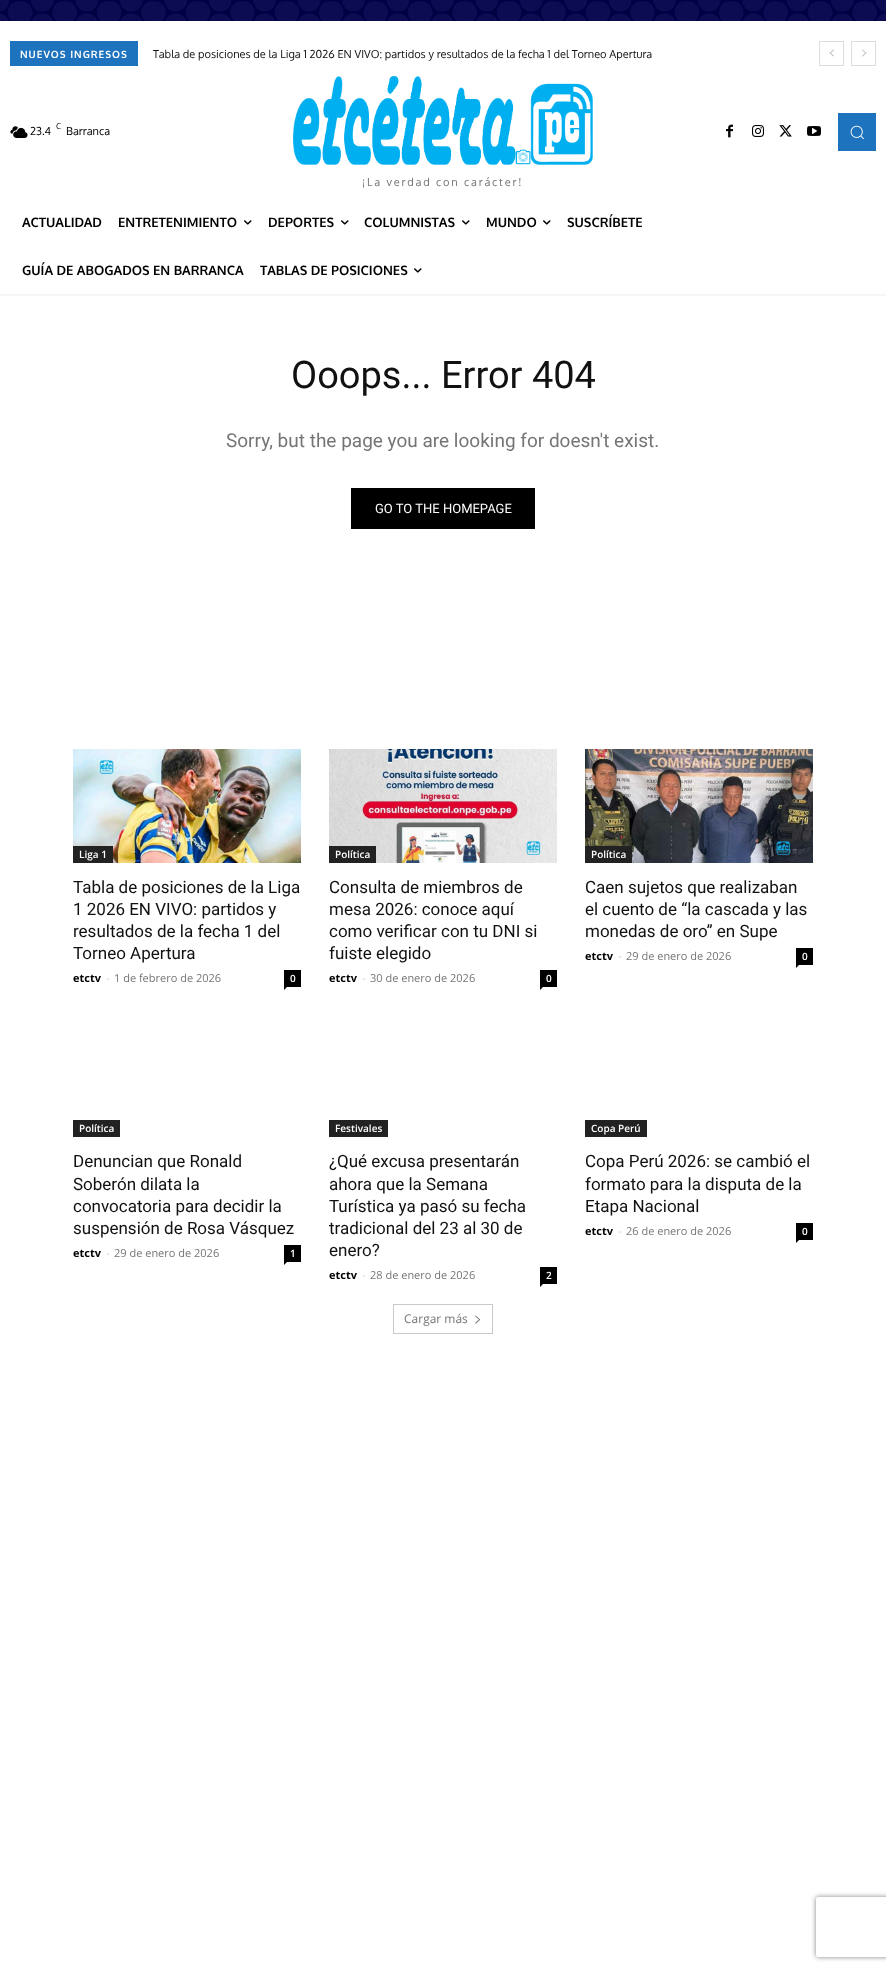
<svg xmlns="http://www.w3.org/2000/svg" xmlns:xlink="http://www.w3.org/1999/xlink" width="886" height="1971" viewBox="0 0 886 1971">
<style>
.cls-1{font:bold 10px Oxygen;letter-spacing:1px;fill:#ffffff}
.cls-2{font:11px Oxygen;fill:#111111}
.cls-3{font:11px Oxygen;fill:#000000}
.cls-4{font:8px Oxygen;fill:#000000}
.cls-5{font:11px Oxygen;letter-spacing:1.8px;fill:#757575}
.cls-6{font:bold 13px Oxygen;fill:#000000}
.cls-7{font:38px Roboto;fill:#111111}
.cls-8{font:19px Roboto;fill:#757575}
.cls-9{font:13px Roboto;fill:#ffffff}
.cls-10{font:600 10px Open Sans;fill:#ffffff}
.cls-11{font:17px Roboto;fill:#111111}
.cls-12{font:bold 11px Open Sans;fill:#000000}
.cls-13{font:11px Open Sans;fill:#cccccc}
.cls-14{font:11px Open Sans;fill:#757575}
.cls-15{font:12px Open Sans;fill:#757575}
</style>
<defs>
<clipPath id="clip1"><rect x="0" y="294" width="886" height="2"/></clipPath>
<clipPath id="clip2"><path d="M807 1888H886V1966H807ZM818 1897H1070C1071 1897 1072 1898 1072 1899V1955C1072 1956 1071 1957 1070 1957H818C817 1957 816 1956 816 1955V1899C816 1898 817 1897 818 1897Z" clip-rule="evenodd"/></clipPath>
</defs>
<rect width="100%" height="100%" fill="#ffffff"/>
<image xlink:href="image0.png" x="0" y="0" width="886" height="21"/>
<rect fill="#1e73be" x="10" y="41" width="128" height="25"/>
<rect fill="none" stroke="#dcdcdc" x="819.5" y="41.5" width="24" height="24"/>
<image xlink:href="image1.png" x="829" y="49" width="5" height="8"/>
<rect fill="none" stroke="#dcdcdc" x="851.5" y="41.5" width="24" height="24"/>
<image xlink:href="image2.png" x="862" y="49" width="5" height="8"/>
<image xlink:href="image3.png" x="10" y="126" width="18" height="12"/>
<image xlink:href="image4.png" x="726" y="124" width="7" height="14"/>
<image xlink:href="image5.png" x="752" y="125" width="12" height="12"/>
<image xlink:href="image6.png" x="779" y="125" width="13" height="12"/>
<image xlink:href="image7.png" x="807" y="126" width="14" height="10"/>
<rect fill="#1e73be" x="838" y="113" width="38" height="38"/>
<image xlink:href="image8.png" x="850" y="125" width="14" height="15"/>
<image xlink:href="image9.png" x="293" y="76" width="300" height="89"/>
<g clip-path="url(#clip1)">
<rect fill="#000000" fill-opacity="0.05" filter="blur(1.5px)" x="0" y="200" width="886" height="96"/>
</g>
<image xlink:href="image10.png" x="244" y="220" width="8" height="5"/>
<image xlink:href="image10.png" x="341" y="220" width="8" height="5"/>
<image xlink:href="image10.png" x="462" y="220" width="8" height="5"/>
<image xlink:href="image10.png" x="543" y="220" width="8" height="5"/>
<image xlink:href="image10.png" x="414" y="268" width="8" height="5"/>
<rect fill="#000000" x="351" y="488" width="184" height="41"/>
<image xlink:href="image11.png" x="73" y="749" width="228" height="114"/>
<rect fill="#222222" x="73" y="846" width="40" height="17"/>
<rect fill="#000000" x="284" y="970" width="17" height="17"/>
<path fill="#000000" d="M284 987H287L284 990Z"/>
<image xlink:href="image12.png" x="329" y="749" width="228" height="114"/>
<rect fill="#222222" x="329" y="846" width="47" height="17"/>
<rect fill="#000000" x="540" y="970" width="17" height="17"/>
<path fill="#000000" d="M540 987H543L540 990Z"/>
<image xlink:href="image13.png" x="585" y="749" width="228" height="114"/>
<rect fill="#222222" x="585" y="846" width="47" height="17"/>
<rect fill="#000000" x="796" y="948" width="17" height="17"/>
<path fill="#000000" d="M796 965H799L796 968Z"/>
<rect fill="#222222" x="73" y="1120" width="47" height="17"/>
<rect fill="#000000" x="284" y="1245" width="17" height="17"/>
<path fill="#000000" d="M284 1262H287L284 1265Z"/>
<rect fill="#222222" x="329" y="1120" width="59" height="17"/>
<rect fill="#000000" x="540" y="1267" width="17" height="17"/>
<path fill="#000000" d="M540 1284H543L540 1287Z"/>
<rect fill="#222222" x="585" y="1120" width="62" height="17"/>
<rect fill="#000000" x="796" y="1223" width="17" height="17"/>
<path fill="#000000" d="M796 1240H799L796 1243Z"/>
<rect fill="none" stroke="#c9c9c9" x="393.5" y="1304.5" width="99" height="29"/>
<image xlink:href="image14.png" x="475" y="1315" width="6" height="9"/>
<g clip-path="url(#clip2)">
<rect fill="#808080" filter="blur(2.5px)" x="816" y="1897" width="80" height="60" rx="2"/>
</g>
<text class="cls-1" x="20" y="58">NUEVOS INGRESOS</text>
<text class="cls-2" x="153" y="58">Tabla de posiciones de la Liga 1 2026 EN VIVO: partidos y resultados de la fecha 1 del Torneo Apertura</text>
<text class="cls-3" x="30" y="135">23.4</text>
<text class="cls-4" x="56" y="129">C</text>
<text class="cls-3" x="66" y="135">Barranca</text>
<text class="cls-5" x="362" y="186">¡La verdad con carácter!</text>
<text class="cls-6" x="22" y="227">ACTUALIDAD</text>
<text class="cls-6" x="118" y="227">ENTRETENIMIENTO</text>
<text class="cls-6" x="268" y="227">DEPORTES</text>
<text class="cls-6" x="364" y="227">COLUMNISTAS</text>
<text class="cls-6" x="486" y="227">MUNDO</text>
<text class="cls-6" x="567" y="227">SUSCRÍBETE</text>
<text class="cls-6" x="22" y="275">GUÍA DE ABOGADOS EN BARRANCA</text>
<text class="cls-6" x="260" y="275">TABLAS DE POSICIONES</text>
<text class="cls-7" x="291" y="388">Ooops... Error 404</text>
<text class="cls-8" x="226" y="447">Sorry, but the page you are looking for doesn't exist.</text>
<text class="cls-9" x="375" y="513">GO TO THE HOMEPAGE</text>
<text class="cls-10" x="79" y="858">Liga 1</text>
<text class="cls-11"><tspan x="73" y="893">Tabla de posiciones de la Liga</tspan><tspan x="73" y="915">1 2026 EN VIVO: partidos y</tspan><tspan x="73" y="937">resultados de la fecha 1 del</tspan><tspan x="73" y="959">Torneo Apertura</tspan></text>
<text class="cls-12" x="73" y="982">etctv</text>
<text class="cls-13" x="106" y="982">-</text>
<text class="cls-14" x="114" y="982">1 de febrero de 2026</text>
<text class="cls-10" x="290" y="982">0</text>
<text class="cls-10" x="335" y="858">Política</text>
<text class="cls-11"><tspan x="329" y="893">Consulta de miembros de</tspan><tspan x="329" y="915">mesa 2026: conoce aquí</tspan><tspan x="329" y="937">como verificar con tu DNI si</tspan><tspan x="329" y="959">fuiste elegido</tspan></text>
<text class="cls-12" x="329" y="982">etctv</text>
<text class="cls-13" x="362" y="982">-</text>
<text class="cls-14" x="370" y="982">30 de enero de 2026</text>
<text class="cls-10" x="546" y="982">0</text>
<text class="cls-10" x="591" y="858">Política</text>
<text class="cls-11"><tspan x="585" y="893">Caen sujetos que realizaban</tspan><tspan x="585" y="915">el cuento de “la cascada y las</tspan><tspan x="585" y="937">monedas de oro” en Supe</tspan></text>
<text class="cls-12" x="585" y="960">etctv</text>
<text class="cls-13" x="618" y="960">-</text>
<text class="cls-14" x="626" y="960">29 de enero de 2026</text>
<text class="cls-10" x="802" y="960">0</text>
<text class="cls-10" x="79" y="1132">Política</text>
<text class="cls-11"><tspan x="73" y="1167">Denuncian que Ronald</tspan><tspan x="73" y="1190">Soberón dilata la</tspan><tspan x="73" y="1212">convocatoria para decidir la</tspan><tspan x="73" y="1234">suspensión de Rosa Vásquez</tspan></text>
<text class="cls-12" x="73" y="1257">etctv</text>
<text class="cls-13" x="106" y="1257">-</text>
<text class="cls-14" x="114" y="1257">29 de enero de 2026</text>
<text class="cls-10" x="290" y="1257">1</text>
<text class="cls-10" x="335" y="1132">Festivales</text>
<text class="cls-11"><tspan x="329" y="1167">¿Qué excusa presentarán</tspan><tspan x="329" y="1190">ahora que la Semana</tspan><tspan x="329" y="1212">Turística ya pasó su fecha</tspan><tspan x="329" y="1234">tradicional del 23 al 30 de</tspan><tspan x="329" y="1256">enero?</tspan></text>
<text class="cls-12" x="329" y="1279">etctv</text>
<text class="cls-13" x="362" y="1279">-</text>
<text class="cls-14" x="370" y="1279">28 de enero de 2026</text>
<text class="cls-10" x="546" y="1279">2</text>
<text class="cls-10" x="591" y="1132">Copa Perú</text>
<text class="cls-11"><tspan x="585" y="1167">Copa Perú 2026: se cambió el</tspan><tspan x="585" y="1190">formato para la disputa de la</tspan><tspan x="585" y="1212">Etapa Nacional</tspan></text>
<text class="cls-12" x="585" y="1235">etctv</text>
<text class="cls-13" x="618" y="1235">-</text>
<text class="cls-14" x="626" y="1235">26 de enero de 2026</text>
<text class="cls-10" x="802" y="1235">0</text>
<text class="cls-15" x="404" y="1323">Cargar más</text>
</svg>
